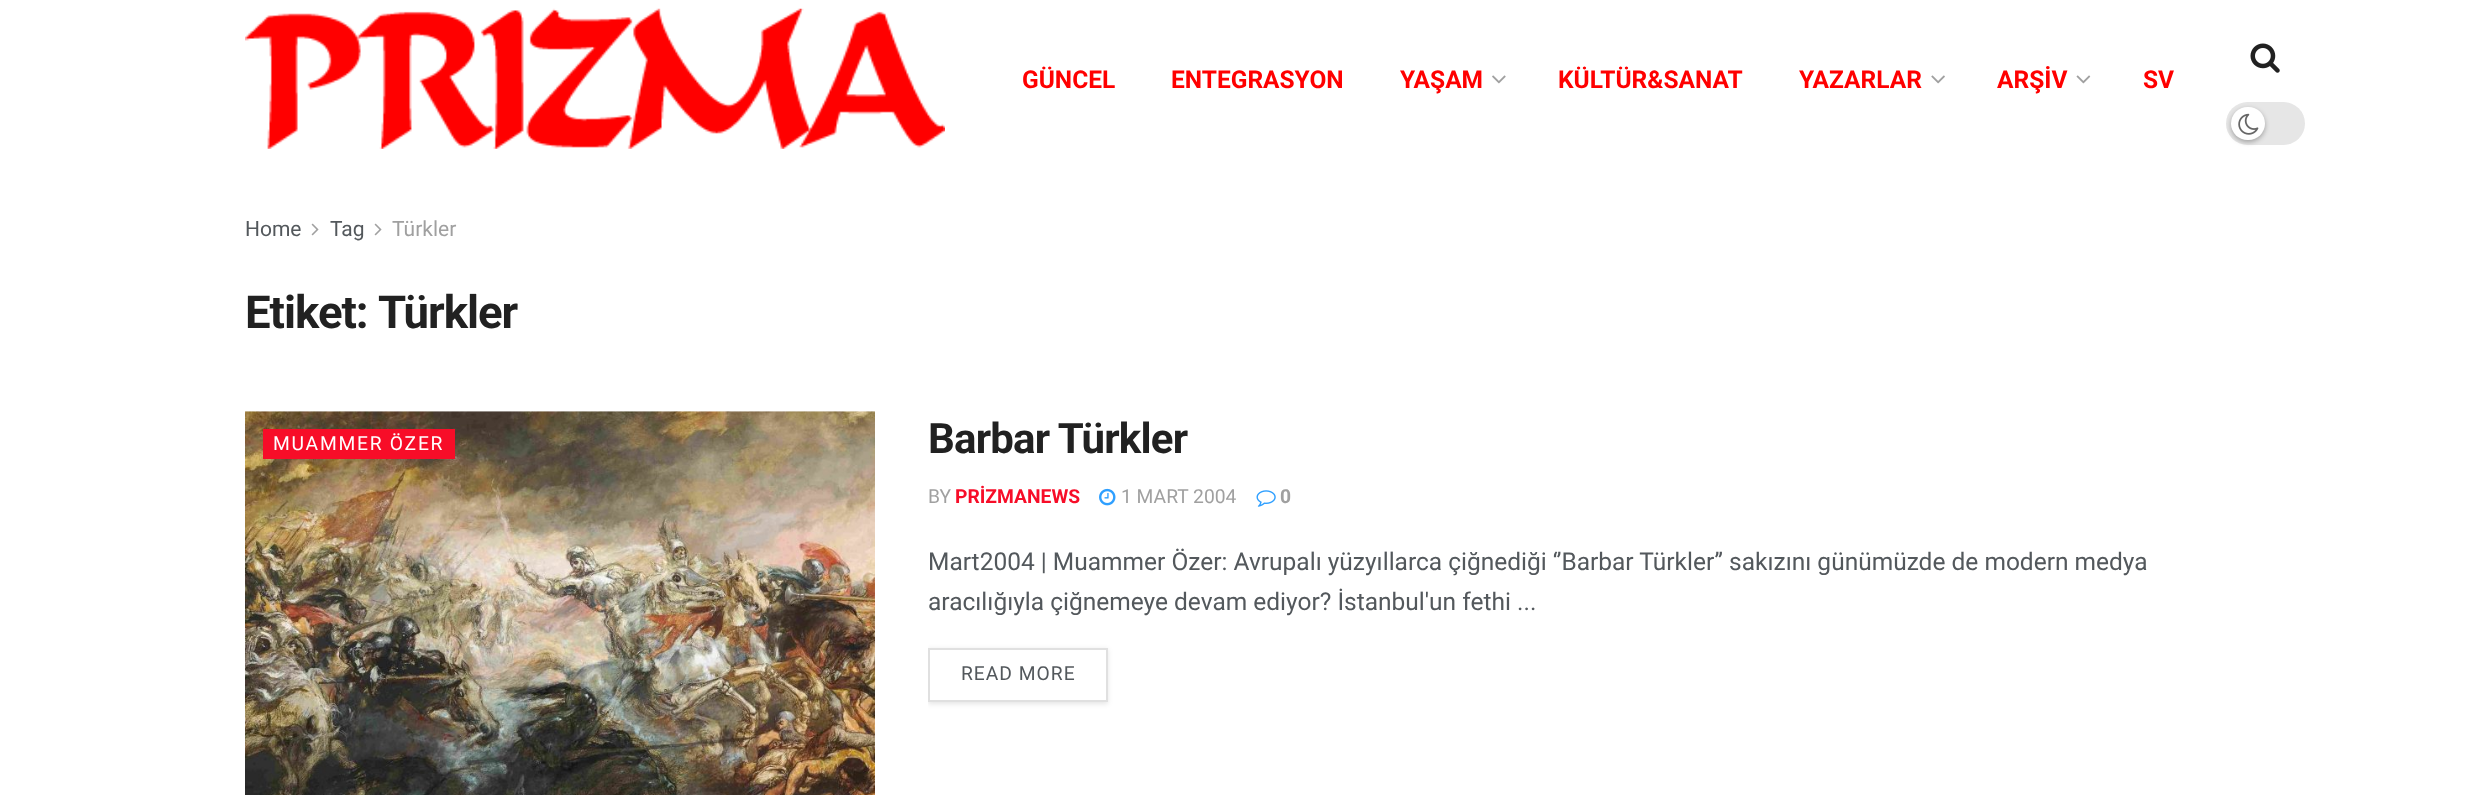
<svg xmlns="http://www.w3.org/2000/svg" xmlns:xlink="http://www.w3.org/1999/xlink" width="2485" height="795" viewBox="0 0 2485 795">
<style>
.cls-1{font:bold 24.5px Roboto;fill:#ff0000}
.cls-2{font:21px Roboto;fill:#53585c}
.cls-3{font:21px Roboto;fill:#a0a0a0}
.cls-4{font:bold 45.5px Roboto;letter-spacing:-1px;fill:#212121}
.cls-5{font:19.25px Roboto;letter-spacing:1.75px;fill:#ffffff}
.cls-6{font:bold 42px Roboto;letter-spacing:-0.8px;fill:#212121}
.cls-7{font:19.25px Roboto;fill:#a0a0a0}
.cls-8{font:bold 19.25px Roboto;fill:#f70d28}
.cls-9{font:bold 19.25px Roboto;fill:#a0a0a0}
.cls-10{font:24.5px Roboto;fill:#53585c}
.cls-11{font:19.25px Roboto;letter-spacing:1px;fill:#53585c}
</style>
<defs>
<clipPath id="clip1"><rect x="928" y="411" width="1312" height="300"/></clipPath>
<clipPath id="clip2"><path d="M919 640H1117V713H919ZM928 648H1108V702H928Z" clip-rule="evenodd"/></clipPath>
</defs>
<rect width="100%" height="100%" fill="#ffffff"/>
<image xlink:href="image0.png" x="245" y="8" width="700" height="141"/>
<image xlink:href="image1.png" x="1492" y="75" width="14" height="9"/>
<image xlink:href="image2.png" x="1931" y="75" width="14" height="9"/>
<image xlink:href="image3.png" x="2076" y="75" width="15" height="9"/>
<image xlink:href="image4.png" x="2250" y="43" width="30" height="30"/>
<rect fill="#e6e6e6" x="2226" y="102" width="79" height="43" rx="21.5"/>
<rect fill="#000000" fill-opacity="0.3" filter="blur(2.5px)" x="2231" y="109" width="34" height="33" rx="16.5"/>
<rect fill="#ffffff" x="2231" y="107" width="34" height="33" rx="16.5"/>
<image xlink:href="image5.png" x="2238" y="113" width="21" height="22"/>
<image xlink:href="image6.png" x="311" y="223" width="8" height="13"/>
<image xlink:href="image6.png" x="374" y="223" width="8" height="13"/>
<rect fill="#f7f7f7" x="245" y="411" width="630" height="1"/>
<image xlink:href="image7.png" x="245" y="411" width="630" height="384"/>
<rect fill="#f70d28" x="263" y="429" width="192" height="30"/>
<image xlink:href="image8.png" x="1099" y="488" width="17" height="18"/>
<image xlink:href="image9.png" x="1256" y="490" width="20" height="17"/>
<g clip-path="url(#clip1)">
<g clip-path="url(#clip2)">
<rect fill="#000000" fill-opacity="0.1" filter="blur(2.5px)" x="928" y="649" width="180" height="55"/>
</g>
</g>
<rect fill="none" stroke="#e0e0e0" stroke-width="2" x="929" y="649" width="178" height="52"/>
<text class="cls-1" x="1022" y="88">GÜNCEL</text>
<text class="cls-1" x="1171" y="88">ENTEGRASYON</text>
<text class="cls-1" x="1400" y="88">YAŞAM</text>
<text class="cls-1" x="1558" y="88">KÜLTÜR&amp;SANAT</text>
<text class="cls-1" x="1799" y="88">YAZARLAR</text>
<text class="cls-1" x="1997" y="88">ARŞİV</text>
<text class="cls-1" x="2143" y="88">SV</text>
<text class="cls-2" x="245" y="236">Home</text>
<text class="cls-2" x="330" y="236">Tag</text>
<text class="cls-3" x="392" y="236">Türkler</text>
<text class="cls-4" x="245" y="328">Etiket:</text>
<text class="cls-4" x="378" y="328">Türkler</text>
<text class="cls-5" x="273" y="450">MUAMMER ÖZER</text>
<text class="cls-6" x="928" y="453">Barbar Türkler</text>
<text class="cls-7" x="928" y="503">BY</text>
<text class="cls-8" x="955" y="503">PRİZMANEWS</text>
<text class="cls-7" x="1121" y="503">1 MART 2004</text>
<text class="cls-9" x="1280" y="503">0</text>
<text class="cls-10"><tspan x="928" y="570">Mart2004 | Muammer Özer: Avrupalı yüzyıllarca çiğnediği ‘’Barbar Türkler’’ sakızını günümüzde de modern medya</tspan><tspan x="928" y="610">aracılığıyla çiğnemeye devam ediyor? İstanbul'un fethi ...</tspan></text>
<text class="cls-11" x="961" y="680">READ MORE</text>
</svg>
